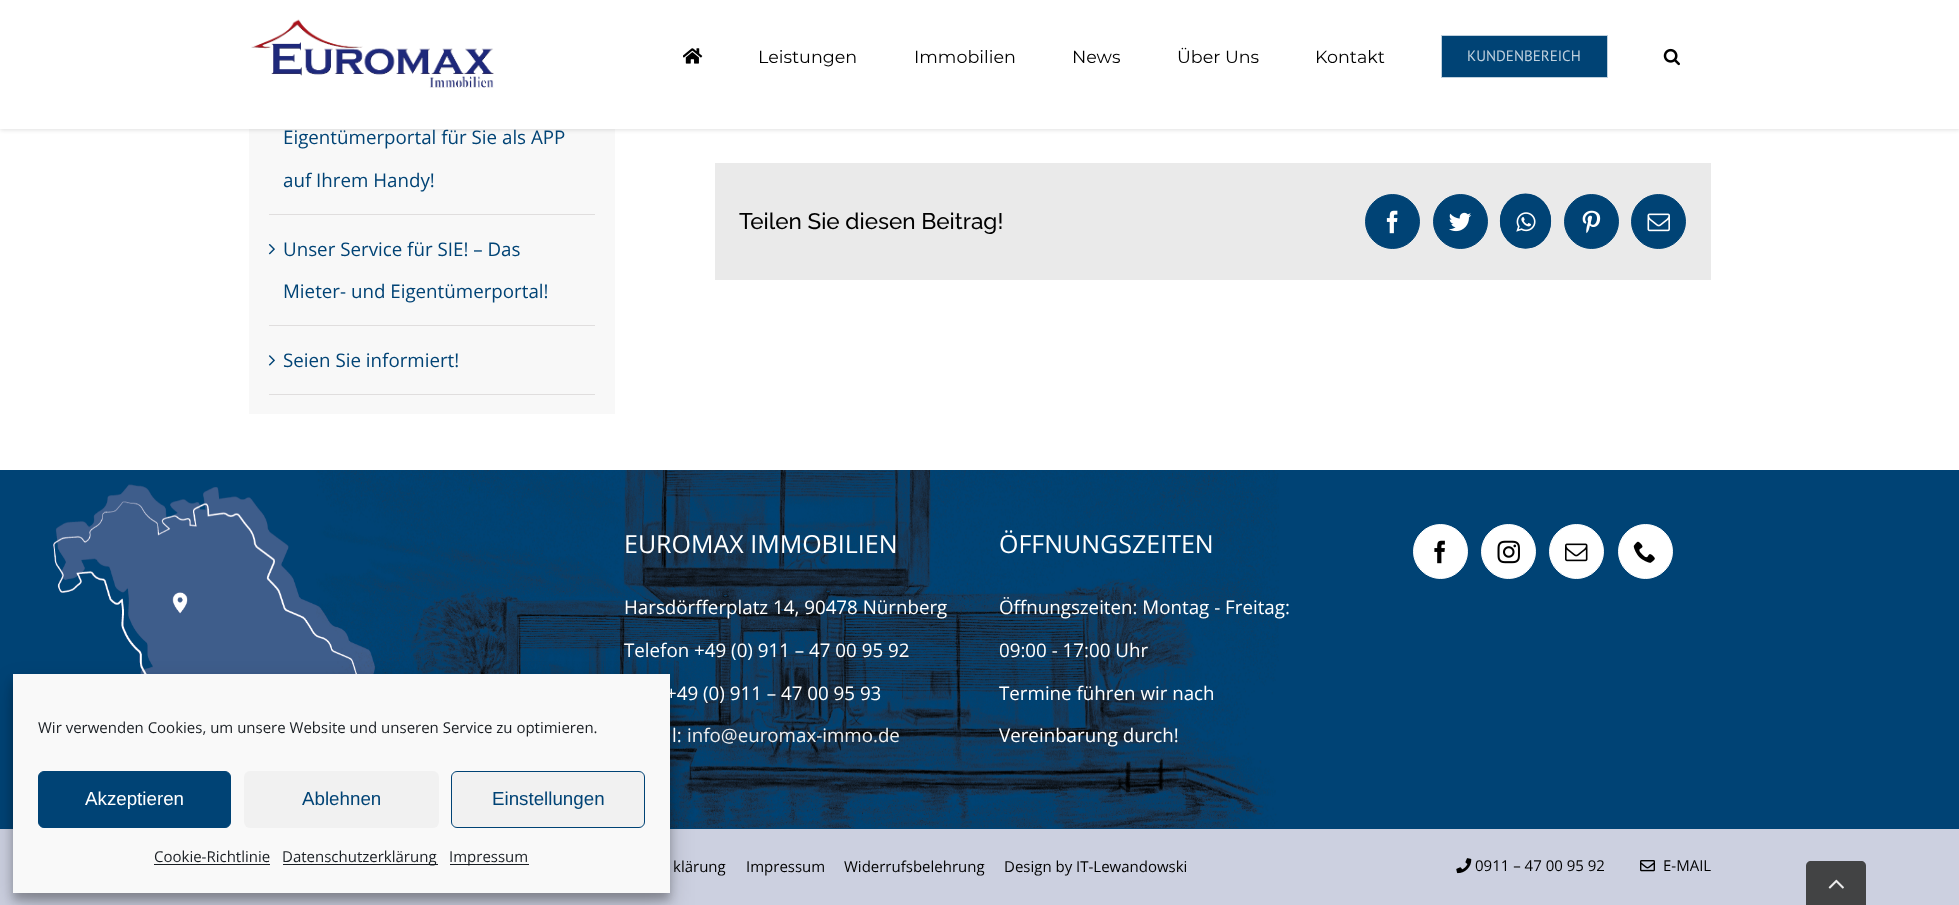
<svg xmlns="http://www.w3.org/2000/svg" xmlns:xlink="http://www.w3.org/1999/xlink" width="1959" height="905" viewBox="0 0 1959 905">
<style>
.cls-1{font:17.5px Montserrat;fill:#000000}
.cls-2{font:15px PT Sans;fill:#bfd0dd}
.cls-3{font:18.75px Open Sans;fill:#004375}
.cls-4{font:100 22.5px Raleway;fill:#000000}
.cls-5{font:25px Open Sans;fill:#ffffff}
.cls-6{font:18.75px Open Sans;fill:#ffffff}
.cls-7{font:18.75px Open Sans;fill:#efefef}
.cls-8{font:15px Open Sans;fill:#000000}
.cls-9{font:15px Open Sans;fill:#191e23}
.cls-10{font:18.75px Liberation Sans;fill:#ffffff}
.cls-11{font:18.75px Liberation Sans;fill:#004375}
</style>
<rect width="100%" height="100%" fill="#ffffff"/>
<rect fill="#f8f8f8" x="249" y="129" width="366" height="285"/>
<rect fill="#000000" fill-opacity="0.12" filter="blur(2px)" x="0" y="1" width="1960" height="129"/>
<rect fill="#ffffff" x="0" y="0" width="1959" height="129"/>
<image xlink:href="image0.png" x="251" y="19" width="243" height="69"/>
<image xlink:href="image1.png" x="683" y="48" width="20" height="16"/>
<rect fill="#004375" stroke="#bfd0dd" x="1441.5" y="35.5" width="166" height="42"/>
<image xlink:href="image2.png" x="1663" y="48" width="17" height="18"/>
<rect fill="#e0dede" x="269" y="214" width="326" height="1"/>
<rect fill="#e0dede" x="269" y="325" width="326" height="1"/>
<image xlink:href="image3.png" x="268" y="244" width="7" height="11"/>
<rect fill="#e0dede" x="269" y="394" width="326" height="1"/>
<image xlink:href="image4.png" x="268" y="355" width="7" height="11"/>
<rect fill="#eaeaea" x="715" y="163" width="996" height="117"/>
<circle fill="#004375" stroke="#004375" cx="1392.5" cy="221.5" r="27"/>
<image xlink:href="image5.png" x="1386" y="210" width="12" height="24"/>
<circle fill="#004375" stroke="#004375" cx="1460.5" cy="221.5" r="27"/>
<image xlink:href="image6.png" x="1449" y="212" width="23" height="20"/>
<ellipse fill="#004375" cx="1525.5" cy="221" rx="25.5" ry="27.5"/>
<path fill="none" stroke="#004375" stroke-width="1.2" d="M1525.5 194.5C1539.5 194.5 1550.5 206.5 1550.5 221C1550.5 236 1539.5 248 1525.5 248C1512 248 1500.5 236 1500.5 221C1500.5 206.5 1512 194.5 1525.5 194.5Z"/>
<image xlink:href="image7.png" x="1516" y="212" width="20" height="20"/>
<circle fill="#004375" stroke="#004375" cx="1591.5" cy="221.5" r="27"/>
<image xlink:href="image8.png" x="1582" y="210" width="19" height="24"/>
<circle fill="#004375" stroke="#004375" cx="1658.5" cy="221.5" r="27"/>
<image xlink:href="image9.png" x="1647" y="213" width="23" height="19"/>
<rect fill="#004375" x="0" y="470" width="1959" height="359"/>
<image xlink:href="image10.png" x="53" y="470" width="1226" height="359"/>
<circle fill="#ffffff" stroke="#ffffff" cx="1440.5" cy="551.5" r="27"/>
<image xlink:href="image11.png" x="1434" y="540" width="11" height="24"/>
<circle fill="#ffffff" stroke="#ffffff" cx="1508.5" cy="551.5" r="27"/>
<image xlink:href="image12.png" x="1497" y="540" width="23" height="24"/>
<circle fill="#ffffff" stroke="#ffffff" cx="1576.5" cy="551.5" r="27"/>
<image xlink:href="image13.png" x="1565" y="543" width="23" height="19"/>
<circle fill="#ffffff" stroke="#ffffff" cx="1645.5" cy="551.5" r="27"/>
<image xlink:href="image14.png" x="1633" y="541" width="22" height="22"/>
<rect fill="#ccd0e0" x="0" y="829" width="1959" height="76"/>
<image xlink:href="image15.png" x="1456" y="858" width="16" height="16"/>
<image xlink:href="image16.png" x="1640" y="860" width="15" height="12"/>
<rect fill="#000000" fill-opacity="0.23" filter="blur(4px)" x="13" y="681" width="657" height="219"/>
<rect fill="#000000" fill-opacity="0.19" filter="blur(12.5px)" x="13" y="686" width="657" height="219"/>
<path fill="#424344" d="M1811 861H1861C1864 861 1866 863 1866 866V905H1806V866C1806 863 1808 861 1811 861Z"/>
<image xlink:href="image17.png" x="1828" y="879" width="16" height="10"/>
<text class="cls-1" x="758" y="63">Leistungen</text>
<text class="cls-1" x="914" y="63">Immobilien</text>
<text class="cls-1" x="1072" y="63">News</text>
<text class="cls-1" x="1177" y="63">Über Uns</text>
<text class="cls-1" x="1315" y="63">Kontakt</text>
<text class="cls-2" x="1467" y="61">KUNDENBEREICH</text>
<text class="cls-3" x="283" y="144">Eigentümerportal für Sie als APP</text>
<text class="cls-3" x="283" y="187">auf Ihrem Handy!</text>
<text class="cls-3" x="283" y="256">Unser Service für SIE! – Das</text>
<text class="cls-3" x="283" y="298">Mieter- und Eigentümerportal!</text>
<text class="cls-3" x="283" y="367">Seien Sie informiert!</text>
<text class="cls-4" x="739" y="229">Teilen Sie diesen Beitrag!</text>
<text class="cls-5" x="624" y="553">EUROMAX IMMOBILIEN</text>
<text class="cls-6" x="624" y="614">Harsdörfferplatz 14, 90478 Nürnberg</text>
<text class="cls-6" x="624" y="657">Telefon +49 (0) 911 – 47 00 95 92</text>
<text class="cls-6" x="666" y="700">+49 (0) 911 – 47 00 95 93</text>
<text class="cls-6" x="672" y="742">l:</text>
<text class="cls-7" x="687" y="742">info@euromax-immo.de</text>
<text class="cls-5" x="999" y="553">ÖFFNUNGSZEITEN</text>
<text class="cls-6" x="999" y="614">Öffnungszeiten: Montag - Freitag:</text>
<text class="cls-6" x="999" y="657">09:00 - 17:00 Uhr</text>
<text class="cls-6" x="999" y="700">Termine führen wir nach</text>
<text class="cls-6" x="999" y="742">Vereinbarung durch!</text>
<text class="cls-8" x="673" y="872">klärung</text>
<text class="cls-8" x="746" y="872">Impressum</text>
<text class="cls-8" x="844" y="872">Widerrufsbelehrung</text>
<text class="cls-8" x="1004" y="872">Design by IT-Lewandowski</text>
<text class="cls-8" x="1475" y="871">0911 – 47 00 95 92</text>
<text class="cls-8" x="1663" y="871">E-MAIL</text>
<rect fill="#f9f9f9" x="13" y="674" width="657" height="219"/>
<text class="cls-9" x="38" y="733">Wir verwenden Cookies, um unsere Website und unseren Service zu optimieren.</text>
<rect fill="#004375" stroke="#004375" x="38.5" y="771.5" width="192" height="56" rx="5.5"/>
<text class="cls-10" x="85" y="805">Akzeptieren</text>
<rect fill="#f1f1f1" x="244" y="771" width="195" height="57" rx="6"/>
<text class="cls-11" x="302" y="805">Ablehnen</text>
<rect fill="#f1f1f1" stroke="#004375" x="451.5" y="771.5" width="193" height="56" rx="5.5"/>
<text class="cls-11" x="492" y="805">Einstellungen</text>
<text class="cls-9" x="154" y="862">Cookie-Richtlinie</text>
<rect fill="#191e23" x="154" y="864" width="116" height="1"/>
<rect fill="#191e23" x="283" y="864" width="155" height="1"/>
<text class="cls-9" x="282" y="862">Datenschutzerklärung</text>
<rect fill="#191e23" x="450" y="864" width="79" height="1"/>
<text class="cls-9" x="449" y="862">Impressum</text>
</svg>
